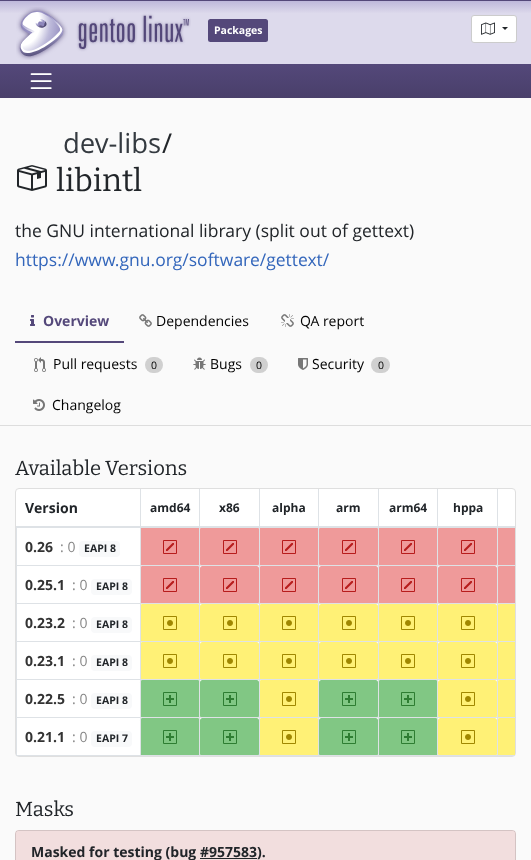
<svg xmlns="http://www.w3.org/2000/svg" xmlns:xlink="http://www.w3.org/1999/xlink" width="531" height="860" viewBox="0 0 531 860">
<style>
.cls-1{font:bold 10.5px Open Sans;fill:#ffffff}
.cls-2{font:27.5px Open Sans;fill:#343a40}
.cls-3{font:27.5px Open Sans;fill:#212529}
.cls-4{font:31.5px Bitter;fill:#212529}
.cls-5{font:17.5px Open Sans;fill:#212529}
.cls-6{font:17.5px Open Sans;fill:#3366bb}
.cls-7{font:bold 14px Open Sans;fill:#54487a}
.cls-8{font:14px Open Sans;fill:#000000}
.cls-9{font:10.5px Open Sans;fill:#000000}
.cls-10{font:20.25px Bitter;fill:#212529}
.cls-11{font:bold 14px Open Sans;fill:#212529}
.cls-12{font:bold 12px Open Sans;fill:#212529}
.cls-13{font:bold 14px Open Sans;fill:#333333}
.cls-14{font:14px Open Sans;fill:#888888}
.cls-15{font:bold 10.5px Open Sans;fill:#212529}
</style>
<defs>
<linearGradient id="g1" gradientUnits="userSpaceOnUse" x1="266" y1="1" x2="266" y2="64"><stop offset="0" stop-color="#beb8db"/><stop offset="0.2" stop-color="#dddaec"/></linearGradient>
<linearGradient id="g2" gradientUnits="userSpaceOnUse" x1="266" y1="64" x2="266" y2="98"><stop offset="0" stop-color="#54487a"/><stop offset="1" stop-color="#493f6a"/></linearGradient>
</defs>
<rect width="100%" height="100%" fill="#fafafa"/>
<rect fill="#54487a" x="0" y="0" width="531" height="1"/>
<rect fill="url(#g1)" x="0" y="1" width="531" height="63"/>
<image xlink:href="image0.png" x="16" y="7" width="175" height="53"/>
<rect fill="#54487a" x="208" y="19" width="60" height="23" rx="2.5"/>
<rect fill="#ffffff" stroke="#cccccc" x="471.5" y="15.5" width="45" height="27" rx="2.5"/>
<image xlink:href="image1.png" x="481" y="22" width="14" height="13"/>
<path fill="#212529" d="M502 27H508L505 30Z"/>
<rect fill="url(#g2)" x="0" y="64" width="531" height="34"/>
<image xlink:href="image2.png" x="30" y="73" width="22" height="16"/>
<image xlink:href="image3.png" x="17" y="165" width="30" height="26"/>
<rect fill="#54487a" x="15" y="341" width="109" height="2"/>
<image xlink:href="image4.png" x="30" y="315" width="5" height="11"/>
<image xlink:href="image5.png" x="139" y="314" width="13" height="13"/>
<image xlink:href="image6.png" x="281" y="314" width="13" height="13"/>
<image xlink:href="image7.png" x="34" y="357" width="12" height="15"/>
<rect fill="#d0d0d0" x="145" y="357" width="18" height="16" rx="8"/>
<image xlink:href="image8.png" x="193" y="357" width="13" height="13"/>
<rect fill="#d0d0d0" x="250" y="357" width="18" height="16" rx="8"/>
<image xlink:href="image9.png" x="298" y="358" width="10" height="12"/>
<rect fill="#d0d0d0" x="371" y="357" width="19" height="16" rx="8"/>
<image xlink:href="image10.png" x="33" y="399" width="12" height="12"/>
<rect fill="#dddddd" x="0" y="425" width="531" height="1"/>
<rect fill="#ffffff" stroke="#dfdfdf" x="15.5" y="488.5" width="500" height="268" rx="3.5"/>
<rect fill="#ef9a9a" x="200" y="527" width="59" height="39" rx="2.5"/>
<rect fill="#ef9a9a" x="319" y="527" width="59" height="39" rx="2.5"/>
<rect fill="#ef9a9a" x="438" y="527" width="59" height="39" rx="2.5"/>
<rect fill="#dee2e6" x="497" y="565" width="18" height="1"/>
<path fill="#ef9a9a" d="M499.5 566H515V604H499.5C498 604 497 603 497 601.5V568.5C497 567 498 566 499.5 566Z"/>
<rect fill="#ef9a9a" x="378" y="566" width="60" height="38" rx="2.5"/>
<rect fill="#ef9a9a" x="438" y="566" width="59" height="38" rx="2.5"/>
<rect fill="#dee2e6" x="497" y="603" width="18" height="1"/>
<path fill="#fff176" d="M499.5 604H515V642H499.5C498 642 497 641 497 639.5V606.5C497 605 498 604 499.5 604Z"/>
<rect fill="#fff176" x="378" y="604" width="60" height="38" rx="2.5"/>
<rect fill="#fff176" x="438" y="604" width="59" height="38" rx="2.5"/>
<rect fill="#dee2e6" x="497" y="641" width="18" height="1"/>
<path fill="#fff176" d="M499.5 642H515V680H499.5C498 680 497 679 497 677.5V644.5C497 643 498 642 499.5 642Z"/>
<rect fill="#fff176" x="378" y="642" width="60" height="38" rx="2.5"/>
<rect fill="#fff176" x="438" y="642" width="59" height="38" rx="2.5"/>
<rect fill="#dee2e6" x="497" y="679" width="18" height="1"/>
<path fill="#fff176" d="M499.5 680H515V718H499.5C498 718 497 717 497 715.5V682.5C497 681 498 680 499.5 680Z"/>
<rect fill="#81c784" x="378" y="680" width="60" height="38" rx="2.5"/>
<rect fill="#fff176" x="438" y="680" width="59" height="38" rx="2.5"/>
<rect fill="#dee2e6" x="497" y="717" width="18" height="1"/>
<path fill="#fff176" d="M499.5 718H515V756H499.5C498 756 497 755 497 753.5V720.5C497 719 498 718 499.5 718Z"/>
<rect fill="#dee2e6" x="497" y="755" width="18" height="1"/>
<rect fill="#dee2e6" x="497" y="717" width="1" height="39"/>
<rect fill="#dee2e6" x="437" y="717" width="61" height="1"/>
<rect fill="#dee2e6" x="497" y="679" width="1" height="39"/>
<rect fill="#dee2e6" x="437" y="679" width="61" height="1"/>
<rect fill="#dee2e6" x="497" y="641" width="1" height="39"/>
<rect fill="#dee2e6" x="437" y="641" width="61" height="1"/>
<rect fill="#dee2e6" x="497" y="603" width="1" height="39"/>
<rect fill="#dee2e6" x="437" y="603" width="61" height="1"/>
<rect fill="#dee2e6" x="497" y="565" width="1" height="39"/>
<rect fill="#dee2e6" x="437" y="565" width="61" height="1"/>
<rect fill="#81c784" x="378" y="718" width="60" height="38" rx="2.5"/>
<rect fill="#fff176" x="438" y="718" width="59" height="38" rx="2.5"/>
<rect fill="#dee2e6" x="437" y="755" width="61" height="1"/>
<rect fill="#dee2e6" x="437" y="717" width="1" height="39"/>
<rect fill="#dee2e6" x="378" y="717" width="60" height="1"/>
<rect fill="#dee2e6" x="437" y="679" width="1" height="39"/>
<rect fill="#dee2e6" x="378" y="679" width="60" height="1"/>
<rect fill="#dee2e6" x="437" y="641" width="1" height="39"/>
<rect fill="#dee2e6" x="378" y="641" width="60" height="1"/>
<rect fill="#dee2e6" x="437" y="603" width="1" height="39"/>
<rect fill="#dee2e6" x="378" y="603" width="60" height="1"/>
<rect fill="#dee2e6" x="437" y="565" width="1" height="39"/>
<rect fill="#dee2e6" x="378" y="565" width="60" height="1"/>
<rect fill="#ef9a9a" x="259" y="566" width="60" height="38" rx="2.5"/>
<rect fill="#ef9a9a" x="319" y="566" width="59" height="38" rx="2.5"/>
<rect fill="#fff176" x="259" y="604" width="60" height="38" rx="2.5"/>
<rect fill="#fff176" x="319" y="604" width="59" height="38" rx="2.5"/>
<rect fill="#fff176" x="259" y="642" width="60" height="38" rx="2.5"/>
<rect fill="#fff176" x="319" y="642" width="59" height="38" rx="2.5"/>
<rect fill="#fff176" x="259" y="680" width="60" height="38" rx="2.5"/>
<rect fill="#81c784" x="319" y="680" width="59" height="38" rx="2.5"/>
<rect fill="#dee2e6" x="378" y="755" width="60" height="1"/>
<rect fill="#dee2e6" x="378" y="717" width="1" height="39"/>
<rect fill="#dee2e6" x="318" y="717" width="61" height="1"/>
<rect fill="#dee2e6" x="378" y="679" width="1" height="39"/>
<rect fill="#dee2e6" x="318" y="679" width="61" height="1"/>
<rect fill="#dee2e6" x="378" y="641" width="1" height="39"/>
<rect fill="#dee2e6" x="318" y="641" width="61" height="1"/>
<rect fill="#dee2e6" x="378" y="603" width="1" height="39"/>
<rect fill="#dee2e6" x="318" y="603" width="61" height="1"/>
<rect fill="#dee2e6" x="378" y="565" width="1" height="39"/>
<rect fill="#dee2e6" x="318" y="565" width="61" height="1"/>
<rect fill="#fff176" x="259" y="718" width="60" height="38" rx="2.5"/>
<rect fill="#81c784" x="319" y="718" width="59" height="38" rx="2.5"/>
<rect fill="#dee2e6" x="318" y="755" width="61" height="1"/>
<rect fill="#dee2e6" x="318" y="717" width="1" height="39"/>
<rect fill="#dee2e6" x="259" y="717" width="60" height="1"/>
<rect fill="#dee2e6" x="318" y="679" width="1" height="39"/>
<rect fill="#dee2e6" x="259" y="679" width="60" height="1"/>
<rect fill="#dee2e6" x="318" y="641" width="1" height="39"/>
<rect fill="#dee2e6" x="259" y="641" width="60" height="1"/>
<rect fill="#dee2e6" x="318" y="603" width="1" height="39"/>
<rect fill="#dee2e6" x="259" y="603" width="60" height="1"/>
<rect fill="#dee2e6" x="318" y="565" width="1" height="39"/>
<rect fill="#dee2e6" x="259" y="565" width="60" height="1"/>
<rect fill="#ef9a9a" x="140" y="566" width="60" height="38" rx="2.5"/>
<rect fill="#ef9a9a" x="200" y="566" width="59" height="38" rx="2.5"/>
<rect fill="#fff176" x="140" y="604" width="60" height="38" rx="2.5"/>
<rect fill="#fff176" x="200" y="604" width="59" height="38" rx="2.5"/>
<rect fill="#fff176" x="140" y="642" width="60" height="38" rx="2.5"/>
<rect fill="#fff176" x="200" y="642" width="59" height="38" rx="2.5"/>
<rect fill="#81c784" x="140" y="680" width="60" height="38" rx="2.5"/>
<rect fill="#81c784" x="200" y="680" width="59" height="38" rx="2.5"/>
<rect fill="#dee2e6" x="259" y="755" width="60" height="1"/>
<rect fill="#dee2e6" x="259" y="717" width="1" height="39"/>
<rect fill="#dee2e6" x="199" y="717" width="61" height="1"/>
<rect fill="#dee2e6" x="259" y="679" width="1" height="39"/>
<rect fill="#dee2e6" x="199" y="679" width="61" height="1"/>
<rect fill="#dee2e6" x="259" y="641" width="1" height="39"/>
<rect fill="#dee2e6" x="199" y="641" width="61" height="1"/>
<rect fill="#dee2e6" x="259" y="603" width="1" height="39"/>
<rect fill="#dee2e6" x="199" y="603" width="61" height="1"/>
<rect fill="#dee2e6" x="259" y="565" width="1" height="39"/>
<rect fill="#dee2e6" x="199" y="565" width="61" height="1"/>
<rect fill="#81c784" x="140" y="718" width="60" height="38" rx="2.5"/>
<rect fill="#81c784" x="200" y="718" width="59" height="38" rx="2.5"/>
<rect fill="#dee2e6" x="199" y="755" width="61" height="1"/>
<rect fill="#dee2e6" x="199" y="717" width="1" height="39"/>
<rect fill="#dee2e6" x="140" y="717" width="60" height="1"/>
<rect fill="#dee2e6" x="199" y="679" width="1" height="39"/>
<rect fill="#dee2e6" x="140" y="679" width="60" height="1"/>
<rect fill="#dee2e6" x="199" y="641" width="1" height="39"/>
<rect fill="#dee2e6" x="140" y="641" width="60" height="1"/>
<rect fill="#dee2e6" x="199" y="603" width="1" height="39"/>
<rect fill="#dee2e6" x="140" y="603" width="60" height="1"/>
<rect fill="#dee2e6" x="199" y="565" width="1" height="39"/>
<rect fill="#dee2e6" x="140" y="565" width="60" height="1"/>
<rect fill="#dee2e6" x="140" y="755" width="60" height="1"/>
<rect fill="#dee2e6" x="140" y="717" width="1" height="39"/>
<rect fill="#dee2e6" x="16" y="717" width="125" height="1"/>
<rect fill="#dee2e6" x="140" y="679" width="1" height="39"/>
<rect fill="#dee2e6" x="16" y="679" width="125" height="1"/>
<rect fill="#dee2e6" x="140" y="641" width="1" height="39"/>
<rect fill="#dee2e6" x="16" y="641" width="125" height="1"/>
<rect fill="#dee2e6" x="140" y="603" width="1" height="39"/>
<rect fill="#dee2e6" x="16" y="603" width="125" height="1"/>
<rect fill="#dee2e6" x="140" y="565" width="1" height="39"/>
<rect fill="#dee2e6" x="16" y="565" width="125" height="1"/>
<rect fill="#dee2e6" x="140" y="489" width="1" height="77"/>
<rect fill="#dee2e6" x="199" y="489" width="1" height="77"/>
<rect fill="#dee2e6" x="259" y="489" width="1" height="77"/>
<rect fill="#dee2e6" x="318" y="489" width="1" height="77"/>
<rect fill="#dee2e6" x="378" y="489" width="1" height="77"/>
<rect fill="#dee2e6" x="437" y="489" width="1" height="77"/>
<rect fill="#dee2e6" x="497" y="489" width="1" height="77"/>
<rect fill="#dee2e6" x="16" y="755" width="125" height="1"/>
<rect fill="#dee2e6" x="16" y="717" width="1" height="39"/>
<rect fill="#dee2e6" x="16" y="679" width="1" height="39"/>
<rect fill="#dee2e6" x="16" y="641" width="1" height="39"/>
<rect fill="#dee2e6" x="16" y="603" width="1" height="39"/>
<rect fill="#dee2e6" x="16" y="527" width="1" height="77"/>
<rect fill="#dee2e6" x="16" y="526" width="499" height="2"/>
<rect fill="#f8f9fa" x="79" y="541" width="41" height="16" rx="4"/>
<rect fill="#ef9a9a" x="141" y="528" width="58" height="37"/>
<image xlink:href="image11.png" x="163" y="540" width="14" height="14"/>
<image xlink:href="image11.png" x="223" y="540" width="14" height="14"/>
<rect fill="#ef9a9a" x="260" y="528" width="58" height="37"/>
<image xlink:href="image11.png" x="282" y="540" width="14" height="14"/>
<image xlink:href="image11.png" x="342" y="540" width="14" height="14"/>
<rect fill="#ef9a9a" x="379" y="528" width="58" height="37"/>
<image xlink:href="image11.png" x="401" y="540" width="14" height="14"/>
<image xlink:href="image11.png" x="461" y="540" width="14" height="14"/>
<rect fill="#ef9a9a" x="498" y="528" width="17" height="37"/>
<rect fill="#f8f9fa" x="91" y="579" width="41" height="16" rx="4"/>
<image xlink:href="image11.png" x="163" y="578" width="14" height="14"/>
<image xlink:href="image11.png" x="223" y="578" width="14" height="14"/>
<image xlink:href="image11.png" x="282" y="578" width="14" height="14"/>
<image xlink:href="image11.png" x="342" y="578" width="14" height="14"/>
<image xlink:href="image11.png" x="401" y="578" width="14" height="14"/>
<image xlink:href="image11.png" x="461" y="578" width="14" height="14"/>
<rect fill="#f8f9fa" x="91" y="617" width="41" height="16" rx="4"/>
<image xlink:href="image12.png" x="163" y="616" width="14" height="14"/>
<image xlink:href="image12.png" x="223" y="616" width="14" height="14"/>
<image xlink:href="image12.png" x="282" y="616" width="14" height="14"/>
<image xlink:href="image12.png" x="342" y="616" width="14" height="14"/>
<image xlink:href="image12.png" x="401" y="616" width="14" height="14"/>
<image xlink:href="image12.png" x="461" y="616" width="14" height="14"/>
<rect fill="#f8f9fa" x="91" y="655" width="41" height="16" rx="4"/>
<image xlink:href="image12.png" x="163" y="654" width="14" height="14"/>
<image xlink:href="image12.png" x="223" y="654" width="14" height="14"/>
<image xlink:href="image12.png" x="282" y="654" width="14" height="14"/>
<image xlink:href="image12.png" x="342" y="654" width="14" height="14"/>
<image xlink:href="image12.png" x="401" y="654" width="14" height="14"/>
<image xlink:href="image12.png" x="461" y="654" width="14" height="14"/>
<rect fill="#f8f9fa" x="91" y="693" width="41" height="16" rx="4"/>
<image xlink:href="image13.png" x="163" y="692" width="14" height="14"/>
<image xlink:href="image13.png" x="223" y="692" width="14" height="14"/>
<image xlink:href="image12.png" x="282" y="692" width="14" height="14"/>
<image xlink:href="image13.png" x="342" y="692" width="14" height="14"/>
<image xlink:href="image13.png" x="401" y="692" width="14" height="14"/>
<image xlink:href="image12.png" x="461" y="692" width="14" height="14"/>
<rect fill="#f8f9fa" x="91" y="731" width="41" height="16" rx="4"/>
<image xlink:href="image13.png" x="163" y="730" width="14" height="14"/>
<image xlink:href="image13.png" x="223" y="730" width="14" height="14"/>
<image xlink:href="image12.png" x="282" y="730" width="14" height="14"/>
<image xlink:href="image13.png" x="342" y="730" width="14" height="14"/>
<image xlink:href="image13.png" x="401" y="730" width="14" height="14"/>
<image xlink:href="image12.png" x="461" y="730" width="14" height="14"/>
<rect fill="#f2dede" x="15" y="830" width="501" height="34" rx="4"/>
<rect fill="none" stroke="#000000" stroke-opacity="0.12" x="15.5" y="830.5" width="500" height="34" rx="3.5"/>
<rect fill="#f2dede" x="16" y="831" width="499" height="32" rx="3"/>
<rect fill="#212529" x="200" y="858" width="57" height="1"/>
<text class="cls-1" x="214" y="34">Packages</text>
<text class="cls-2" x="63" y="153">dev-libs</text>
<text class="cls-3" x="162" y="153">/</text>
<text class="cls-4" x="56" y="191">libintl</text>
<text class="cls-5" x="15" y="237">the GNU international library (split out of gettext)</text>
<text class="cls-6" x="15" y="266">https://www.gnu.org/software/gettext/</text>
<text class="cls-7" x="43" y="326">Overview</text>
<text class="cls-8" x="156" y="326">Dependencies</text>
<text class="cls-8" x="300" y="326">QA report</text>
<text class="cls-8" x="53" y="369">Pull requests</text>
<text class="cls-9" x="151" y="369">0</text>
<text class="cls-8" x="210" y="369">Bugs</text>
<text class="cls-9" x="256" y="369">0</text>
<text class="cls-8" x="312" y="369">Security</text>
<text class="cls-9" x="378" y="369">0</text>
<text class="cls-8" x="52" y="410">Changelog</text>
<text class="cls-10" x="15" y="475">Available Versions</text>
<text class="cls-11" x="25" y="513">Version</text>
<text class="cls-12" x="150" y="512">amd64</text>
<text class="cls-12" x="219" y="512">x86</text>
<text class="cls-12" x="272" y="512">alpha</text>
<text class="cls-12" x="336" y="512">arm</text>
<text class="cls-12" x="389" y="512">arm64</text>
<text class="cls-12" x="453" y="512">hppa</text>
<text class="cls-13" x="25" y="552">0.26</text>
<text class="cls-14" x="60" y="552">: 0</text>
<text class="cls-15" x="84" y="552">EAPI 8</text>
<text class="cls-13" x="25" y="590">0.25.1</text>
<text class="cls-14" x="72" y="590">: 0</text>
<text class="cls-15" x="96" y="590">EAPI 8</text>
<text class="cls-13" x="25" y="628">0.23.2</text>
<text class="cls-14" x="72" y="628">: 0</text>
<text class="cls-15" x="96" y="628">EAPI 8</text>
<text class="cls-13" x="25" y="666">0.23.1</text>
<text class="cls-14" x="72" y="666">: 0</text>
<text class="cls-15" x="96" y="666">EAPI 8</text>
<text class="cls-13" x="25" y="704">0.22.5</text>
<text class="cls-14" x="72" y="704">: 0</text>
<text class="cls-15" x="96" y="704">EAPI 8</text>
<text class="cls-13" x="25" y="742">0.21.1</text>
<text class="cls-14" x="72" y="742">: 0</text>
<text class="cls-15" x="96" y="742">EAPI 7</text>
<text class="cls-10" x="15" y="816">Masks</text>
<text class="cls-11" x="31" y="857">Masked for testing (bug #957583).</text>
</svg>
